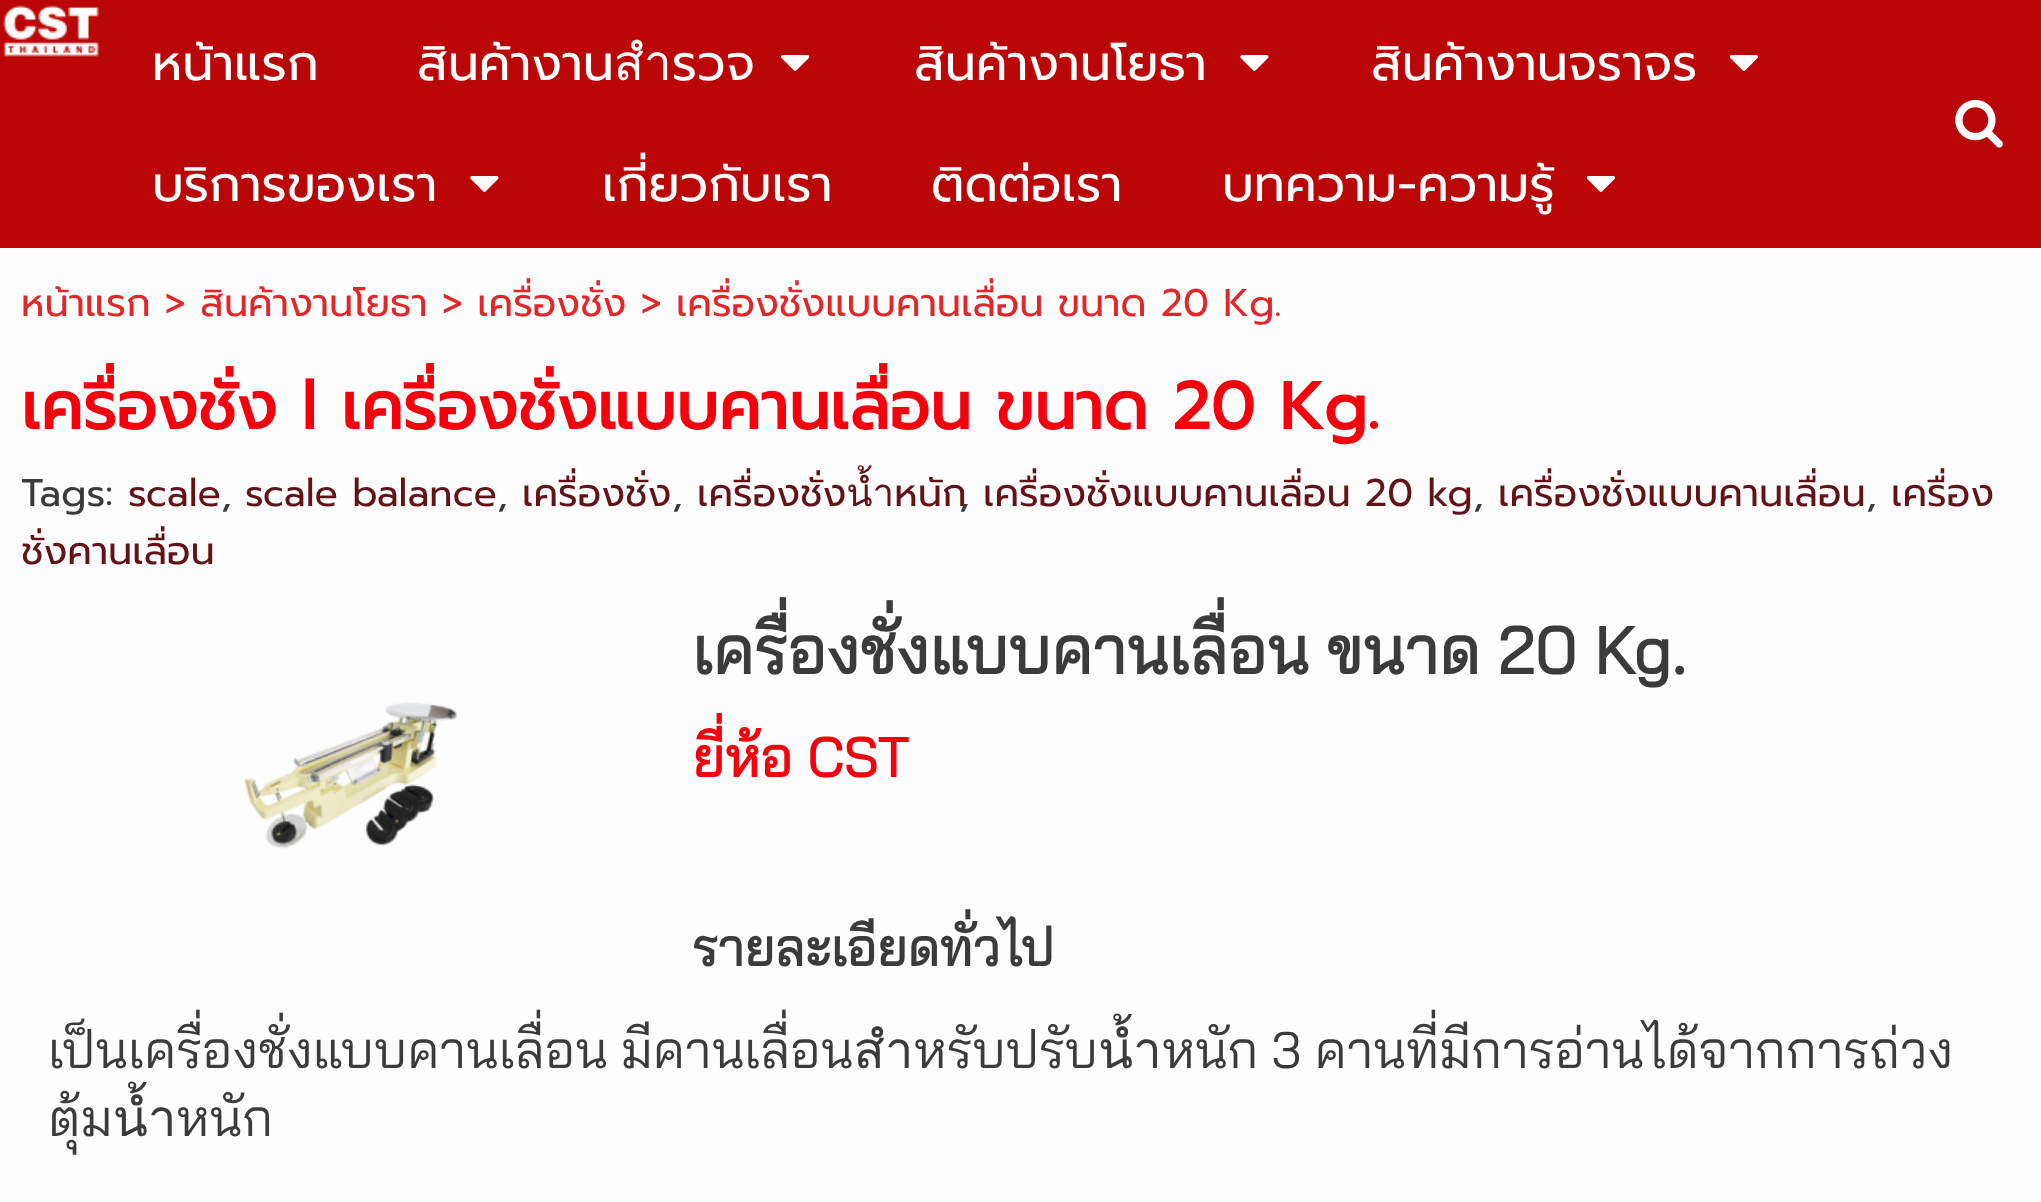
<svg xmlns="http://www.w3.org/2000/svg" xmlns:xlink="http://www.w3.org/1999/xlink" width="2041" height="1202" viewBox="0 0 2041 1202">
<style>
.cls-1{font:49.5px Prompt;fill:#ffffff}
.cls-2{font:38.5px Prompt;fill:#e2272a}
.cls-3{font:bold 66px Prompt;fill:#f5000c}
.cls-4{font:38.5px Prompt;fill:#3b3b3b}
.cls-5{font:38.5px Prompt;fill:#631318}
.cls-6{font:bold 66px Bai Jamjuree;fill:#3b3b3b}
.cls-7{font:bold 55px Bai Jamjuree;fill:#f5000c}
.cls-8{font:bold 51.35px Bai Jamjuree;fill:#3b3b3b}
.cls-9{font:51.35px Bai Jamjuree;fill:#3b3b3b}
</style>
<rect width="100%" height="100%" fill="#fdfdfd"/>
<rect fill="#ba0606" x="0" y="0" width="2041" height="248"/>
<image xlink:href="image0.png" x="3" y="5" width="96" height="52"/>
<image xlink:href="image1.png" x="781" y="55" width="29" height="16"/>
<image xlink:href="image2.png" x="1240" y="55" width="29" height="16"/>
<image xlink:href="image3.png" x="1729" y="55" width="29" height="16"/>
<image xlink:href="image2.png" x="470" y="176" width="29" height="16"/>
<image xlink:href="image3.png" x="1586" y="176" width="29" height="16"/>
<image xlink:href="image4.png" x="1955" y="99" width="48" height="49"/>
<image xlink:href="image5.png" x="244" y="702" width="213" height="147"/>
<text class="cls-1" x="152" y="80">หน้าแรก</text>
<text class="cls-1" x="417" y="80">สินค้างานสำรวจ</text>
<text class="cls-1" x="914" y="80">สินค้างานโยธา</text>
<text class="cls-1" x="1371" y="80">สินค้างานจราจร</text>
<text class="cls-1" x="152" y="201">บริการของเรา</text>
<text class="cls-1" x="602" y="201">เกี่ยวกับเรา</text>
<text class="cls-1" x="931" y="201">ติดต่อเรา</text>
<text class="cls-1" x="1222" y="201">บทความ-ความรู้</text>
<text class="cls-2" x="21" y="316">หน้าแรก &gt; สินค้างานโยธา &gt; เครื่องชั่ง &gt; เครื่องชั่งแบบคานเลื่อน ขนาด 20 Kg.</text>
<text class="cls-3" x="21" y="429">เครื่องชั่ง l เครื่องชั่งแบบคานเลื่อน ขนาด 20 Kg.</text>
<text class="cls-4" x="21" y="506">Tags:</text>
<text class="cls-5" x="128" y="506">scale</text>
<text class="cls-4" x="221" y="506">,</text>
<text class="cls-5" x="245" y="506">scale balance</text>
<text class="cls-4" x="497" y="506">,</text>
<text class="cls-5" x="522" y="506">เครื่องชั่ง</text>
<text class="cls-4" x="672" y="506">,</text>
<text class="cls-5" x="697" y="506">เครื่องชั่งน้ำหนัก</text>
<text class="cls-4" x="959" y="506">,</text>
<text class="cls-5" x="983" y="506">เครื่องชั่งแบบคานเลื่อน 20 kg</text>
<text class="cls-4" x="1473" y="506">,</text>
<text class="cls-5" x="1498" y="506">เครื่องชั่งแบบคานเลื่อน</text>
<text class="cls-4" x="1866" y="506">,</text>
<text class="cls-5" x="1891" y="506">เครื่อง</text>
<text class="cls-5" x="21" y="564">ชั่งคานเลื่อน</text>
<text class="cls-6" x="692" y="674">เครื่องชั่งแบบคานเลื่อน ขนาด 20 Kg.</text>
<text class="cls-7" x="692" y="777">ยี่ห้อ CST</text>
<text class="cls-8" x="692" y="966">รายละเอียดทั่วไป</text>
<text class="cls-9"><tspan x="48" y="1068" word-spacing="-0.5">เป็นเครื่องชั่งแบบคานเลื่อน มีคานเลื่อนสำหรับปรับน้ำหนัก 3 คานที่มีการอ่านได้จากการถ่วง</tspan><tspan x="48" y="1136">ตุ้มน้ำหนัก</tspan></text>
</svg>
